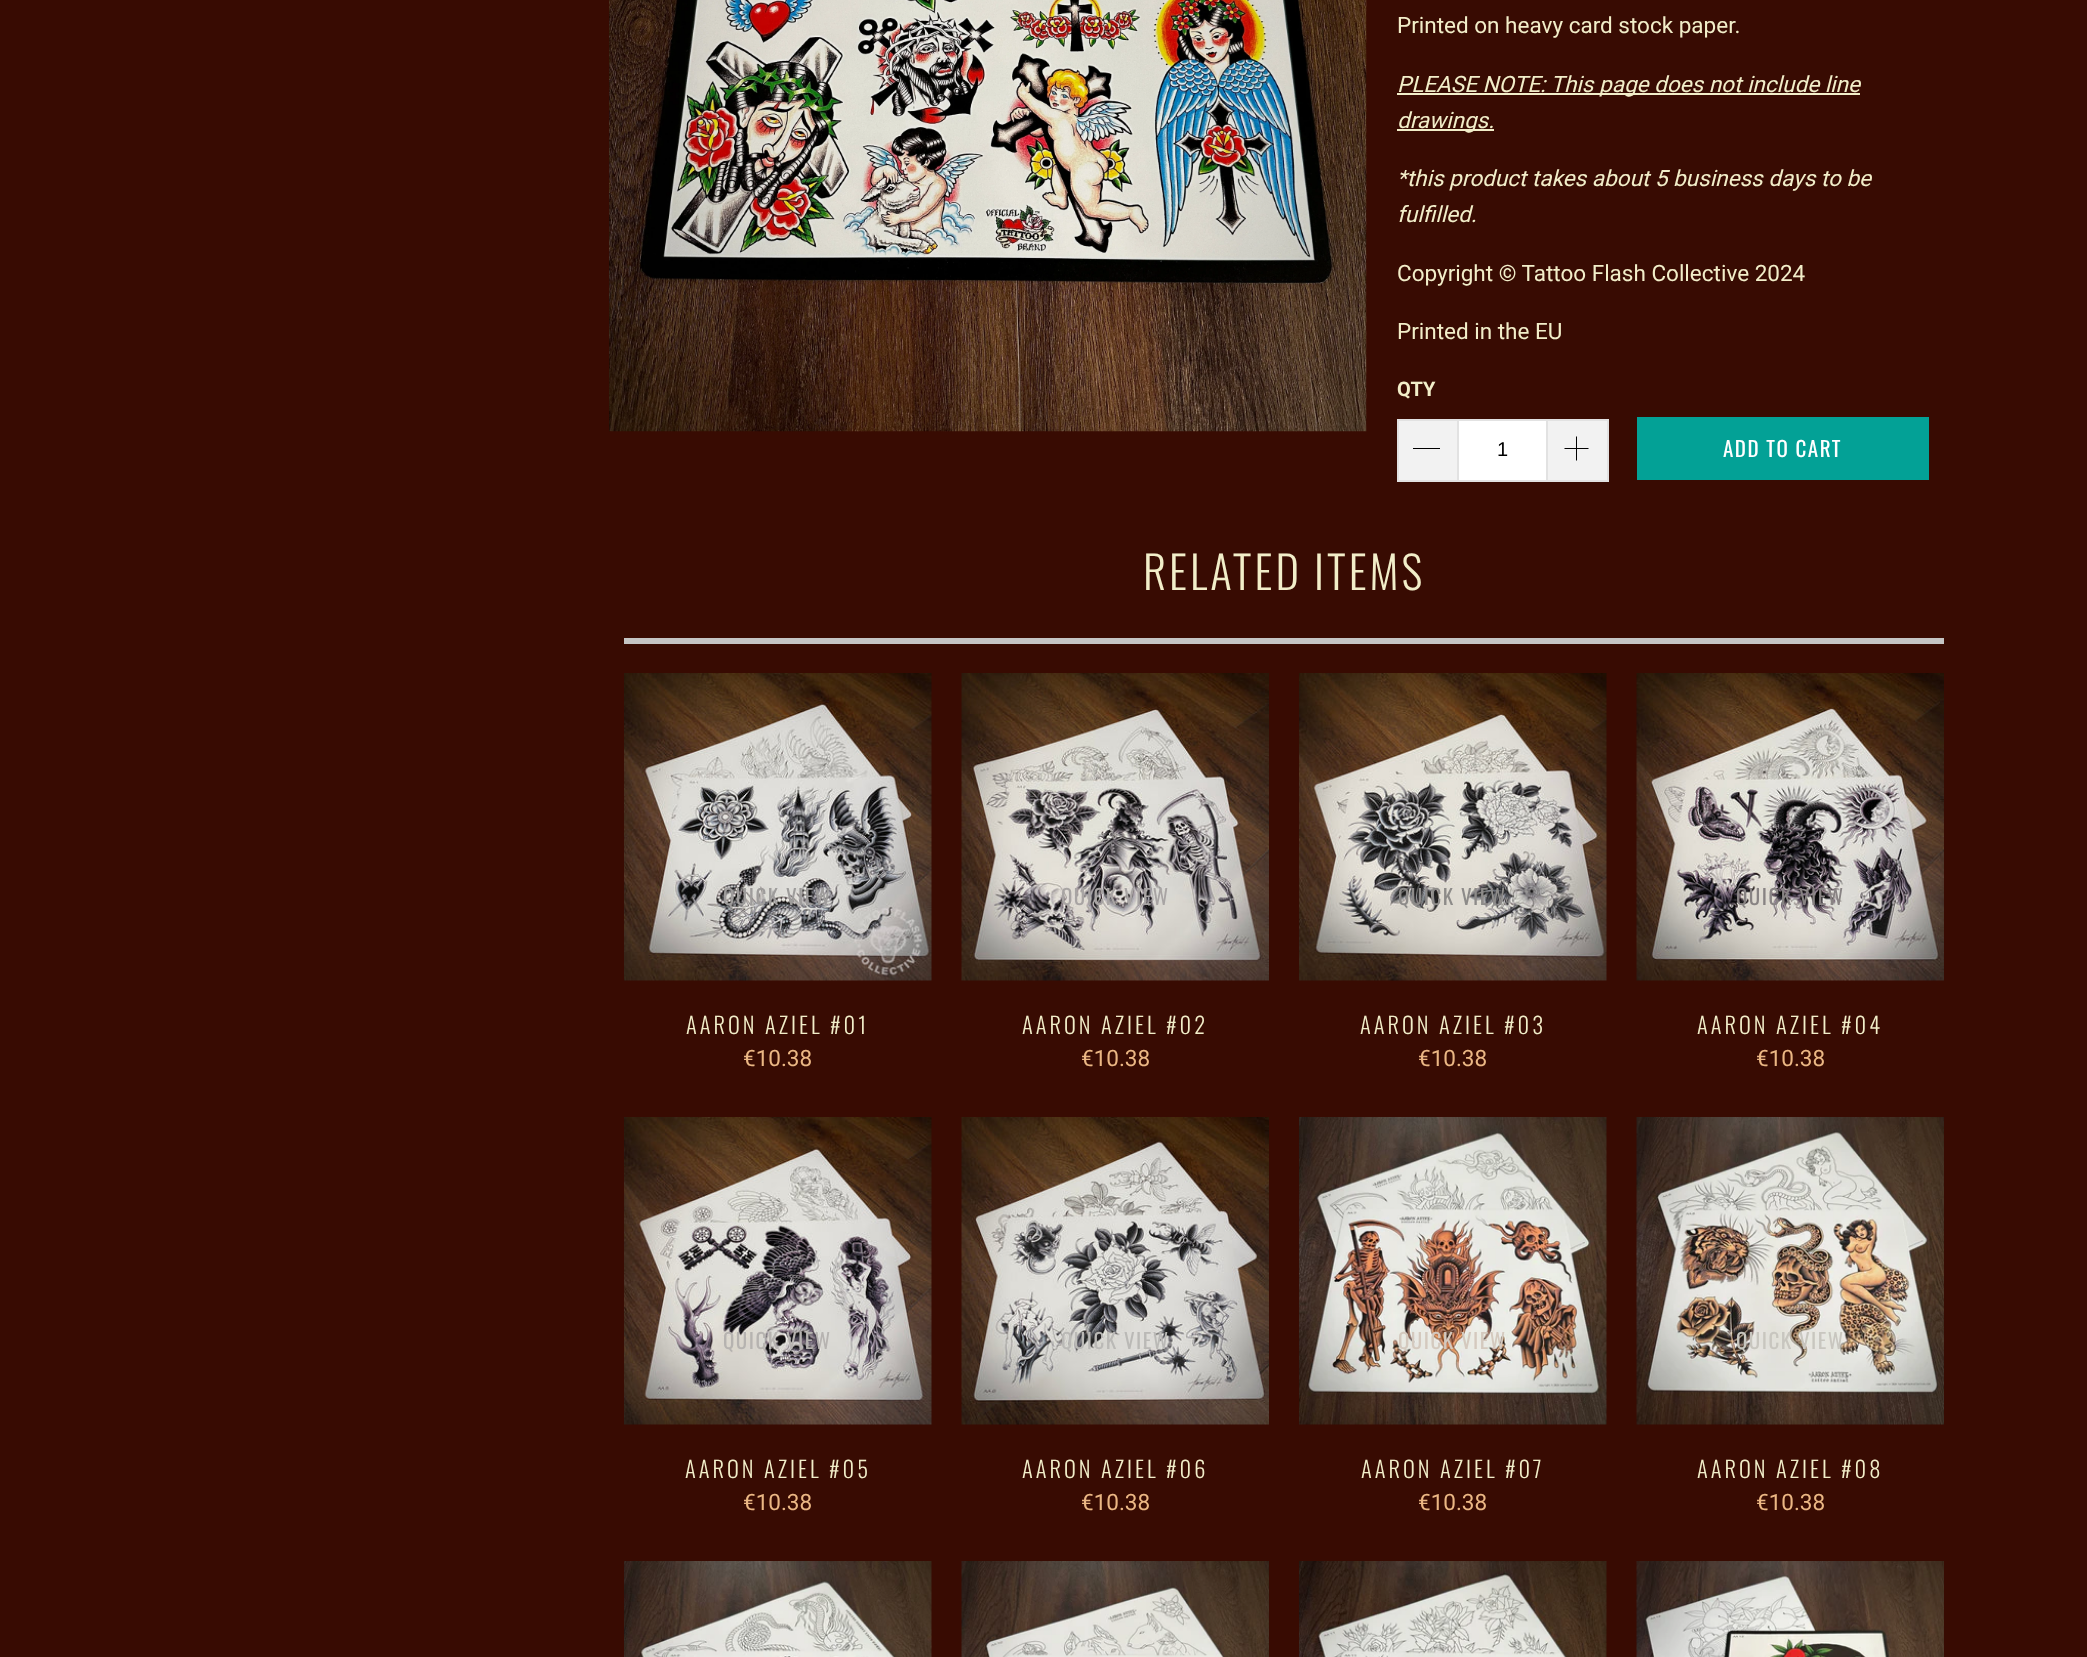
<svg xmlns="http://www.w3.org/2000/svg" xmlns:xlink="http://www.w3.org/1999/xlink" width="2087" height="1657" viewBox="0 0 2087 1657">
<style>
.cls-1{font:22.5px Roboto;fill:#f2eec9}
.cls-2{font:italic 22.5px Roboto;fill:#f2eec9}
.cls-3{font:bold 20px Roboto;fill:#f2eec9}
.cls-4{font:20px Liberation Sans;fill:#000000}
.cls-5{font:21px Oswald;letter-spacing:1.5px;fill:#ffffff}
.cls-6{font:300 45px Oswald;letter-spacing:3px;fill:#f2eec9}
.cls-7{font:21px Oswald;letter-spacing:1.5px;fill:#9e9c9b}
.cls-8{font:300 22.5px Oswald;letter-spacing:3px;fill:#f2eec9}
.cls-9{font:22.5px Roboto;fill:#ebb784}
.cls-10{font:21px Oswald;letter-spacing:1.5px;fill:#a8a4a3}
.cls-11{font:21px Oswald;letter-spacing:1.5px;fill:#8d8b89}
.cls-12{font:21px Oswald;letter-spacing:1.5px;fill:#888383}
.cls-13{font:21px Oswald;letter-spacing:1.5px;fill:#b6b3b0}
.cls-14{font:21px Oswald;letter-spacing:1.5px;fill:#bab9b6}
.cls-15{font:21px Oswald;letter-spacing:1.5px;fill:#d4c9be}
.cls-16{font:21px Oswald;letter-spacing:1.5px;fill:#c8c6bf}
</style>
<rect width="100%" height="100%" fill="#380b02"/>
<image xlink:href="image0.png" x="609" y="0" width="758" height="432"/>
<rect fill="#f2eec9" x="1397" y="93" width="463" height="2"/>
<rect fill="#f2eec9" x="1397" y="129" width="97" height="2"/>
<rect fill="#f2f2f2" x="1399" y="421" width="58" height="59"/>
<rect fill="#e2e2e2" x="1397" y="419" width="60" height="2"/>
<rect fill="#e2e2e2" x="1397" y="480" width="60" height="2"/>
<rect fill="#e2e2e2" x="1397" y="419" width="2" height="63"/>
<rect fill="#000000" x="1413" y="448" width="27" height="1"/>
<rect fill="#ffffff" stroke="#e2e2e2" stroke-width="2" x="1458" y="420" width="89" height="61"/>
<rect fill="#f2f2f2" x="1548" y="421" width="59" height="59"/>
<rect fill="#e2e2e2" x="1548" y="419" width="60" height="2"/>
<rect fill="#e2e2e2" x="1607" y="419" width="2" height="63"/>
<rect fill="#e2e2e2" x="1548" y="480" width="60" height="2"/>
<image xlink:href="image1.png" x="1564" y="436" width="25" height="25"/>
<rect fill="#03a196" x="1637" y="417" width="292" height="63"/>
<rect fill="#c5c5c4" x="624" y="638" width="1320" height="6"/>
<image xlink:href="image2.png" x="624" y="673" width="308" height="308"/>
<image xlink:href="image3.png" x="961" y="673" width="308" height="308"/>
<image xlink:href="image4.png" x="1299" y="673" width="308" height="308"/>
<image xlink:href="image5.png" x="1636" y="673" width="308" height="308"/>
<image xlink:href="image6.png" x="624" y="1117" width="308" height="308"/>
<image xlink:href="image7.png" x="961" y="1117" width="308" height="308"/>
<image xlink:href="image8.png" x="1299" y="1117" width="308" height="308"/>
<image xlink:href="image9.png" x="1636" y="1117" width="308" height="308"/>
<image xlink:href="image10.png" x="624" y="1561" width="308" height="96"/>
<image xlink:href="image11.png" x="961" y="1561" width="308" height="96"/>
<image xlink:href="image12.png" x="1299" y="1561" width="308" height="96"/>
<image xlink:href="image13.png" x="1636" y="1561" width="308" height="96"/>
<text class="cls-1" x="1397" y="33">Printed on heavy card stock paper.</text>
<text class="cls-2"><tspan x="1397" y="92">PLEASE NOTE: This page does not include line</tspan><tspan x="1397" y="128">drawings.</tspan></text>
<text class="cls-2"><tspan x="1397" y="186">*this product takes about 5 business days to be</tspan><tspan x="1397" y="222">fulfilled.</tspan></text>
<text class="cls-1" x="1397" y="281">Copyright © Tattoo Flash Collective 2024</text>
<text class="cls-1" x="1397" y="339">Printed in the EU</text>
<text class="cls-3" x="1397" y="396">QTY</text>
<text class="cls-4" x="1497" y="456">1</text>
<text class="cls-5" x="1723" y="457">ADD TO CART</text>
<text class="cls-6" x="1143" y="590">RELATED ITEMS</text>
<text class="cls-7" x="723" y="905">QUICK VIEW</text>
<text class="cls-8" x="686" y="1034">AARON AZIEL #01</text>
<text class="cls-9" x="743" y="1066">€10.38</text>
<text class="cls-10" x="1061" y="905">QUICK VIEW</text>
<text class="cls-8" x="1022" y="1034">AARON AZIEL #02</text>
<text class="cls-9" x="1081" y="1066">€10.38</text>
<text class="cls-11" x="1398" y="905">QUICK VIEW</text>
<text class="cls-8" x="1360" y="1034">AARON AZIEL #03</text>
<text class="cls-9" x="1418" y="1066">€10.38</text>
<text class="cls-12" x="1736" y="905">QUICK VIEW</text>
<text class="cls-8" x="1697" y="1034">AARON AZIEL #04</text>
<text class="cls-9" x="1756" y="1066">€10.38</text>
<text class="cls-13" x="723" y="1349">QUICK VIEW</text>
<text class="cls-8" x="685" y="1478">AARON AZIEL #05</text>
<text class="cls-9" x="743" y="1510">€10.38</text>
<text class="cls-14" x="1061" y="1349">QUICK VIEW</text>
<text class="cls-8" x="1022" y="1478">AARON AZIEL #06</text>
<text class="cls-9" x="1081" y="1510">€10.38</text>
<text class="cls-15" x="1398" y="1349">QUICK VIEW</text>
<text class="cls-8" x="1361" y="1478">AARON AZIEL #07</text>
<text class="cls-9" x="1418" y="1510">€10.38</text>
<text class="cls-16" x="1736" y="1349">QUICK VIEW</text>
<text class="cls-8" x="1697" y="1478">AARON AZIEL #08</text>
<text class="cls-9" x="1756" y="1510">€10.38</text>
</svg>
